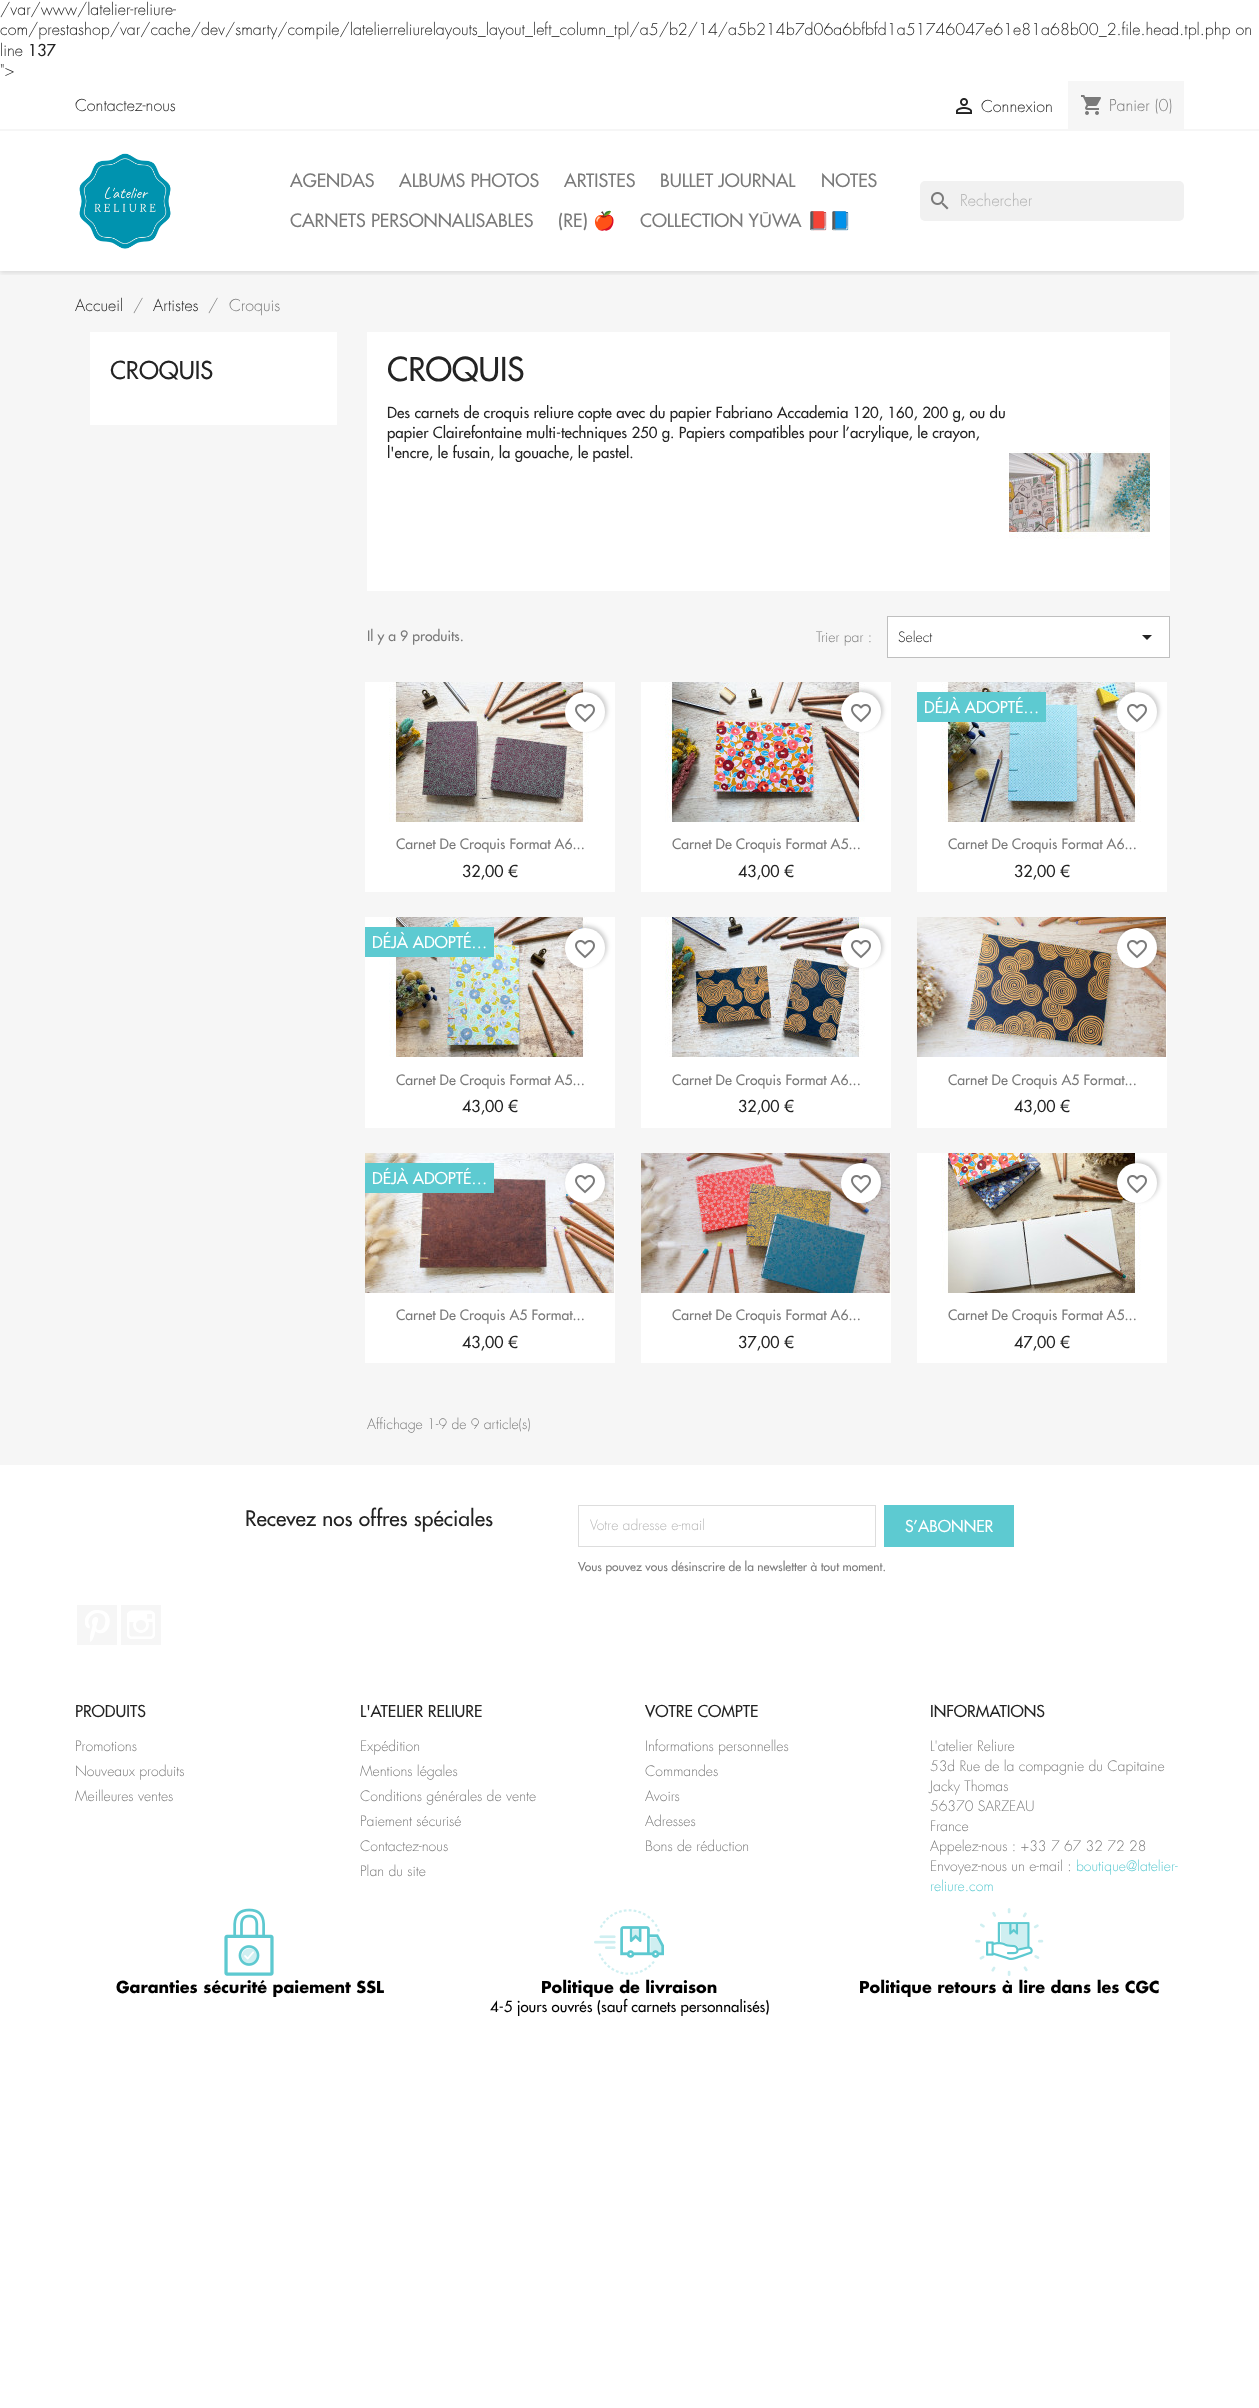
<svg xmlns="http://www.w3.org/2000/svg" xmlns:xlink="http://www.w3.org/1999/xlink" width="1259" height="2408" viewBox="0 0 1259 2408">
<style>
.cls-1{font:300 16px Futura;fill:#232323}
.cls-2{font:16px Futura;fill:#232323}
.cls-3{font:300 16px Futura;fill:#7a7a7a}
.cls-4{font:18px Futura;fill:#7a7a7a}
.cls-5{font:18px Noto Color Emoji;fill:#7a7a7a}
.cls-6{font:18px Liberation Sans;fill:#7a7a7a}
.cls-7{font:300 16px Futura;fill:#b1b1b1}
.cls-8{font:24px Futura;fill:#232323}
.cls-9{font:32px Futura;fill:#232323}
.cls-10{font:15px Futura;fill:#232323}
.cls-11{font:14px Futura;fill:#7a7a7a}
.cls-12{font:300 14px Futura;fill:#7a7a7a}
.cls-13{font:300 14px Futura;fill:#232323}
.cls-14{font:16px Futura;fill:#ffffff}
.cls-15{font:21px Futura;fill:#232323}
.cls-16{font:300 14px Futura;fill:#b7b7b7}
.cls-17{font:12px Futura;fill:#7a7a7a}
.cls-18{font:300 14px Futura;fill:#5dcad1}
.cls-19{font:bold 16px Futura;fill:#000000}
.cls-20{font:15px Futura;fill:#000000}
</style>
<defs>
<clipPath id="clip1"><rect x="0" y="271" width="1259" height="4"/></clipPath>
</defs>
<rect width="100%" height="100%" fill="#ffffff"/>
<rect fill="#f6f6f6" x="0" y="271" width="1259" height="1194"/>
<g clip-path="url(#clip1)">
<rect fill="#000000" fill-opacity="0.11" filter="blur(2.5px)" x="0" y="83" width="1259" height="190"/>
</g>
<rect fill="#f6f6f6" x="0" y="129" width="1259" height="2"/>
<image xlink:href="image0.png" x="956" y="98" width="16" height="16"/>
<rect fill="#f6f6f6" x="1068" y="81" width="116" height="48"/>
<image xlink:href="image1.png" x="1081" y="95" width="20" height="20"/>
<image xlink:href="image2.png" x="79" y="153" width="92" height="96"/>
<rect fill="#f1f1f1" x="920" y="181" width="264" height="40" rx="5"/>
<image xlink:href="image3.png" x="931" y="192" width="18" height="18"/>
<rect fill="#ffffff" x="90" y="332" width="247" height="93"/>
<rect fill="#ffffff" x="367" y="332" width="803" height="259"/>
<image xlink:href="image4.png" x="1009" y="451" width="141" height="88"/>
<rect fill="#ffffff" stroke="#bfbfbf" x="887.5" y="616.5" width="282" height="41"/>
<path fill="#232323" d="M1142 635H1152L1147 640Z"/>
<rect fill="#ffffff" x="365" y="682" width="250" height="210"/>
<image xlink:href="image5.png" x="389" y="682" width="200" height="140"/>
<rect fill="#000000" fill-opacity="0.2" filter="blur(2px)" x="567" y="690" width="40" height="40" rx="20"/>
<circle fill="#ffffff" cx="585" cy="712" r="20"/>
<image xlink:href="image6.png" x="575" y="704" width="20" height="19"/>
<rect fill="#ffffff" x="641" y="682" width="250" height="210"/>
<image xlink:href="image7.png" x="665" y="682" width="200" height="140"/>
<rect fill="#000000" fill-opacity="0.2" filter="blur(2px)" x="843" y="690" width="40" height="40" rx="20"/>
<circle fill="#ffffff" cx="861" cy="712" r="20"/>
<image xlink:href="image6.png" x="851" y="704" width="20" height="19"/>
<rect fill="#ffffff" x="917" y="682" width="250" height="210"/>
<image xlink:href="image8.png" x="941" y="682" width="200" height="140"/>
<rect fill="#5dcad1" x="917" y="692" width="129" height="30"/>
<rect fill="#000000" fill-opacity="0.2" filter="blur(2px)" x="1119" y="690" width="40" height="40" rx="20"/>
<circle fill="#ffffff" cx="1137" cy="712" r="20"/>
<image xlink:href="image6.png" x="1127" y="704" width="20" height="19"/>
<rect fill="#ffffff" x="365" y="917" width="250" height="211"/>
<image xlink:href="image9.png" x="389" y="917" width="200" height="140"/>
<rect fill="#5dcad1" x="365" y="927" width="129" height="30"/>
<rect fill="#000000" fill-opacity="0.2" filter="blur(2px)" x="567" y="926" width="40" height="40" rx="20"/>
<circle fill="#ffffff" cx="585" cy="948" r="20"/>
<image xlink:href="image6.png" x="575" y="940" width="20" height="19"/>
<rect fill="#ffffff" x="641" y="917" width="250" height="211"/>
<image xlink:href="image10.png" x="665" y="917" width="200" height="140"/>
<rect fill="#000000" fill-opacity="0.2" filter="blur(2px)" x="843" y="926" width="40" height="40" rx="20"/>
<circle fill="#ffffff" cx="861" cy="948" r="20"/>
<image xlink:href="image6.png" x="851" y="940" width="20" height="19"/>
<rect fill="#ffffff" x="917" y="1057" width="250" height="71"/>
<image xlink:href="image11.png" x="917" y="917" width="250" height="140"/>
<rect fill="#000000" fill-opacity="0.2" filter="blur(2px)" x="1119" y="926" width="40" height="40" rx="20"/>
<circle fill="#ffffff" cx="1137" cy="948" r="20"/>
<image xlink:href="image6.png" x="1127" y="940" width="20" height="19"/>
<rect fill="#ffffff" x="365" y="1293" width="250" height="70"/>
<image xlink:href="image12.png" x="365" y="1153" width="250" height="140"/>
<rect fill="#5dcad1" x="365" y="1163" width="129" height="30"/>
<rect fill="#000000" fill-opacity="0.2" filter="blur(2px)" x="567" y="1161" width="40" height="40" rx="20"/>
<circle fill="#ffffff" cx="585" cy="1183" r="20"/>
<image xlink:href="image6.png" x="575" y="1175" width="20" height="19"/>
<rect fill="#ffffff" x="641" y="1293" width="250" height="70"/>
<image xlink:href="image13.png" x="641" y="1153" width="250" height="140"/>
<rect fill="#000000" fill-opacity="0.2" filter="blur(2px)" x="843" y="1161" width="40" height="40" rx="20"/>
<circle fill="#ffffff" cx="861" cy="1183" r="20"/>
<image xlink:href="image6.png" x="851" y="1175" width="20" height="19"/>
<rect fill="#ffffff" x="917" y="1153" width="250" height="210"/>
<image xlink:href="image14.png" x="941" y="1153" width="200" height="140"/>
<rect fill="#000000" fill-opacity="0.2" filter="blur(2px)" x="1119" y="1161" width="40" height="40" rx="20"/>
<circle fill="#ffffff" cx="1137" cy="1183" r="20"/>
<image xlink:href="image6.png" x="1127" y="1175" width="20" height="19"/>
<rect fill="none" stroke="#dddddd" x="578.5" y="1505.5" width="297" height="41"/>
<rect fill="#5dcad1" x="884" y="1505" width="130" height="42"/>
<rect fill="#f6f6f6" x="77" y="1605" width="40" height="40"/>
<image xlink:href="image15.png" x="85" y="1610" width="25" height="32"/>
<rect fill="#f6f6f6" x="121" y="1605" width="40" height="40"/>
<image xlink:href="image16.png" x="127" y="1610" width="28" height="29"/>
<image xlink:href="image17.png" x="224" y="1908" width="50" height="68"/>
<image xlink:href="image18.png" x="594" y="1909" width="70" height="66"/>
<image xlink:href="image19.png" x="975" y="1908" width="69" height="68"/>
<text class="cls-1"><tspan x="0" y="15">/var/www/latelier-reliure-</tspan><tspan x="0" y="35">com/prestashop/var/cache/dev/smarty/compile/latelierreliurelayouts_layout_left_column_tpl/a5/b2/14/a5b214b7d06a6bfbfd1a51746047e61e81a68b00_2.file.head.tpl.php on</tspan><tspan x="0" y="56">line</tspan></text>
<text class="cls-2" x="28" y="56">137</text>
<text class="cls-1" x="0" y="76">"&gt;</text>
<text class="cls-1" x="75" y="111">Contactez-nous</text>
<text class="cls-1" x="981" y="112">Connexion</text>
<text class="cls-3" x="1109" y="111">Panier (0)</text>
<text class="cls-4" x="290" y="187">AGENDAS</text>
<text class="cls-4" x="399" y="187">ALBUMS PHOTOS</text>
<text class="cls-4" x="564" y="187">ARTISTES</text>
<text class="cls-4" x="660" y="187">BULLET JOURNAL</text>
<text class="cls-4" x="821" y="187">NOTES</text>
<text class="cls-4" x="290" y="227">CARNETS PERSONNALISABLES</text>
<text class="cls-4" x="558" y="227">(RE)</text>
<text class="cls-5" x="593" y="227">🍎</text>
<text class="cls-4" x="640" y="227">COLLECTION Y</text>
<text class="cls-6" x="759" y="227">Ū</text>
<text class="cls-4" x="772" y="227">WA</text>
<text class="cls-5" x="807" y="227">📕📘</text>
<text class="cls-7" x="960" y="206">Rechercher</text>
<text class="cls-1" x="75" y="311">Accueil</text>
<text class="cls-3" x="133" y="311">/</text>
<text class="cls-1" x="153" y="311">Artistes</text>
<text class="cls-3" x="208" y="311">/</text>
<text class="cls-3" x="229" y="311">Croquis</text>
<text class="cls-8" x="110" y="379">CROQUIS</text>
<text class="cls-9" x="387" y="381">CROQUIS</text>
<text class="cls-10"><tspan x="387" y="418">Des carnets de croquis reliure copte avec du papier Fabriano Accademia 120, 160, 200 g, ou du</tspan><tspan x="387" y="438">papier Clairefontaine multi-techniques 250 g. Papiers compatibles pour l’acrylique, le crayon,</tspan><tspan x="387" y="458">l'encre, le fusain, la gouache, le pastel.</tspan></text>
<text class="cls-11" x="367" y="641">Il y a 9 produits.</text>
<text class="cls-12" x="816" y="642">Trier par :</text>
<text class="cls-13" x="898" y="642">Select</text>
<text class="cls-11" x="396" y="849">Carnet De Croquis Format A6...</text>
<text class="cls-2" x="462" y="877">32,00 €</text>
<text class="cls-11" x="672" y="849">Carnet De Croquis Format A5...</text>
<text class="cls-2" x="738" y="877">43,00 €</text>
<text class="cls-14" x="924" y="713">DÉJÀ ADOPTÉ…</text>
<text class="cls-11" x="948" y="849">Carnet De Croquis Format A6...</text>
<text class="cls-2" x="1014" y="877">32,00 €</text>
<text class="cls-14" x="372" y="948">DÉJÀ ADOPTÉ…</text>
<text class="cls-11" x="396" y="1085">Carnet De Croquis Format A5...</text>
<text class="cls-2" x="462" y="1112">43,00 €</text>
<text class="cls-11" x="672" y="1085">Carnet De Croquis Format A6...</text>
<text class="cls-2" x="738" y="1112">32,00 €</text>
<text class="cls-11" x="948" y="1085">Carnet De Croquis A5 Format...</text>
<text class="cls-2" x="1014" y="1112">43,00 €</text>
<text class="cls-14" x="372" y="1184">DÉJÀ ADOPTÉ…</text>
<text class="cls-11" x="396" y="1320">Carnet De Croquis A5 Format...</text>
<text class="cls-2" x="462" y="1348">43,00 €</text>
<text class="cls-11" x="672" y="1320">Carnet De Croquis Format A6...</text>
<text class="cls-2" x="738" y="1348">37,00 €</text>
<text class="cls-11" x="948" y="1320">Carnet De Croquis Format A5...</text>
<text class="cls-2" x="1014" y="1348">47,00 €</text>
<text class="cls-12" x="367" y="1429">Affichage 1-9 de 9 article(s)</text>
<text class="cls-15" x="245" y="1526">Recevez nos offres spéciales</text>
<text class="cls-16" x="590" y="1530">Votre adresse e-mail</text>
<text class="cls-14" x="905" y="1532">S’ABONNER</text>
<text class="cls-17" x="578" y="1571">Vous pouvez vous désinscrire de la newsletter à tout moment.</text>
<text class="cls-2" x="75" y="1717">PRODUITS</text>
<text class="cls-12"><tspan x="75" y="1751">Promotions</tspan><tspan x="75" y="1776">Nouveaux produits</tspan><tspan x="75" y="1801">Meilleures ventes</tspan></text>
<text class="cls-2" x="360" y="1717">L'ATELIER RELIURE</text>
<text class="cls-12"><tspan x="360" y="1751">Expédition</tspan><tspan x="360" y="1776">Mentions légales</tspan><tspan x="360" y="1801">Conditions générales de vente</tspan><tspan x="360" y="1826">Paiement sécurisé</tspan><tspan x="360" y="1851">Contactez-nous</tspan><tspan x="360" y="1876">Plan du site</tspan></text>
<text class="cls-2" x="645" y="1717">VOTRE COMPTE</text>
<text class="cls-12"><tspan x="645" y="1751">Informations personnelles</tspan><tspan x="645" y="1776">Commandes</tspan><tspan x="645" y="1801">Avoirs</tspan><tspan x="645" y="1826">Adresses</tspan><tspan x="645" y="1851">Bons de réduction</tspan></text>
<text class="cls-2" x="930" y="1717">INFORMATIONS</text>
<text class="cls-12"><tspan x="930" y="1751">L'atelier Reliure</tspan><tspan x="930" y="1771">53d Rue de la compagnie du Capitaine</tspan><tspan x="930" y="1791">Jacky Thomas</tspan><tspan x="930" y="1811">56370 SARZEAU</tspan><tspan x="930" y="1831">France</tspan><tspan x="930" y="1851">Appelez-nous : +33 7 67 32 72 28</tspan><tspan x="930" y="1871">Envoyez-nous un e-mail :</tspan></text>
<text class="cls-18" x="1076" y="1871">boutique@latelier-</text>
<text class="cls-18" x="930" y="1891">reliure.com</text>
<text class="cls-19" x="116" y="1993">Garanties sécurité paiement SSL</text>
<text class="cls-19" x="541" y="1993">Politique de livraison</text>
<text class="cls-20" x="490" y="2012">4-5 jours ouvrés (sauf carnets personnalisés)</text>
<text class="cls-19" x="859" y="1993">Politique retours à lire dans les CGC</text>
</svg>
